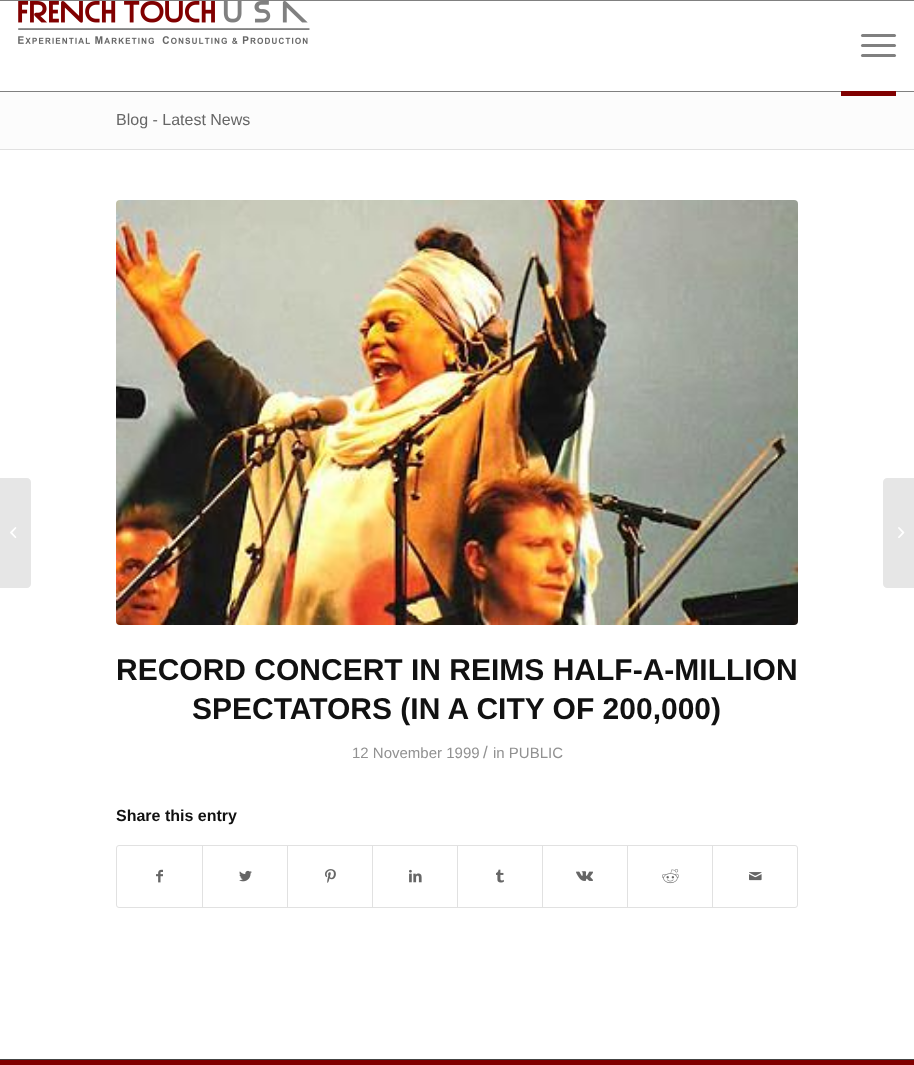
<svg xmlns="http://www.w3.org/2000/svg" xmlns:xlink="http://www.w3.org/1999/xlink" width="914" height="1065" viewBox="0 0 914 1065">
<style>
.cls-1{font:16px Arimo;fill:#666666}
.cls-2{font:bold 30px Arimo;fill:#111111}
.cls-3{font:15px Liberation Sans;fill:#919191}
.cls-4{font:17px Liberation Sans;fill:#919191}
.cls-5{font:bold 16px Arimo;fill:#111111}
</style>
<rect width="100%" height="100%" fill="#ffffff"/>
<rect fill="#808080" x="0" y="0" width="914" height="1"/>
<rect fill="#808080" x="0" y="91" width="914" height="1"/>
<image xlink:href="image0.png" x="18" y="1" width="292" height="43"/>
<rect fill="#fcfcfc" x="0" y="92" width="914" height="57"/>
<rect fill="#800000" x="841" y="91" width="55" height="5"/>
<rect fill="#808080" x="861" y="44" width="35" height="3" rx="1.5"/>
<rect fill="#808080" x="861" y="34" width="35" height="3" rx="1.5"/>
<rect fill="#808080" x="861" y="54" width="35" height="3" rx="1.5"/>
<path fill="#e6e6e6" d="M0 478H27C29 478 31 480 31 482V584C31 586 29 588 27 588H0Z"/>
<image xlink:href="image1.png" x="10" y="527" width="7" height="11"/>
<rect fill="#e1e1e1" x="0" y="149" width="914" height="1"/>
<image xlink:href="image2.png" x="116" y="200" width="682" height="425"/>
<rect fill="none" stroke="#e1e1e1" x="116.5" y="845.5" width="681" height="62" rx="2.5"/>
<image xlink:href="image3.png" x="156" y="869" width="7" height="14"/>
<rect fill="#e1e1e1" x="202" y="846" width="1" height="61"/>
<image xlink:href="image4.png" x="239" y="870" width="13" height="12"/>
<rect fill="#e1e1e1" x="287" y="846" width="1" height="61"/>
<image xlink:href="image5.png" x="325" y="869" width="11" height="14"/>
<rect fill="#e1e1e1" x="372" y="846" width="1" height="61"/>
<image xlink:href="image6.png" x="409" y="869" width="13" height="14"/>
<rect fill="#e1e1e1" x="457" y="846" width="1" height="61"/>
<image xlink:href="image7.png" x="496" y="869" width="8" height="14"/>
<rect fill="#e1e1e1" x="542" y="846" width="1" height="61"/>
<image xlink:href="image8.png" x="576" y="871" width="17" height="10"/>
<rect fill="#e1e1e1" x="627" y="846" width="1" height="61"/>
<image xlink:href="image9.png" x="662" y="869" width="17" height="15"/>
<rect fill="#e1e1e1" x="712" y="846" width="1" height="61"/>
<image xlink:href="image10.png" x="749" y="872" width="13" height="9"/>
<rect fill="#800000" x="0" y="1060" width="914" height="5"/>
<rect fill="#444444" x="0" y="1059" width="914" height="1"/>
<path fill="#e6e6e6" d="M887 478H914V588H887C885 588 883 586 883 584V482C883 480 885 478 887 478Z"/>
<image xlink:href="image11.png" x="898" y="527" width="7" height="11"/>
<text class="cls-1" x="116" y="125">Blog - Latest News</text>
<text class="cls-2" x="116" y="680">RECORD CONCERT IN REIMS HALF-A-MILLION</text>
<text class="cls-2" x="192" y="719">SPECTATORS (IN A CITY OF 200,000)</text>
<text class="cls-3" x="352" y="758">12 November 1999</text>
<text class="cls-4" x="483" y="758">/</text>
<text class="cls-3" x="493" y="758">in PUBLIC</text>
<text class="cls-5" x="116" y="821">Share this entry</text>
</svg>
